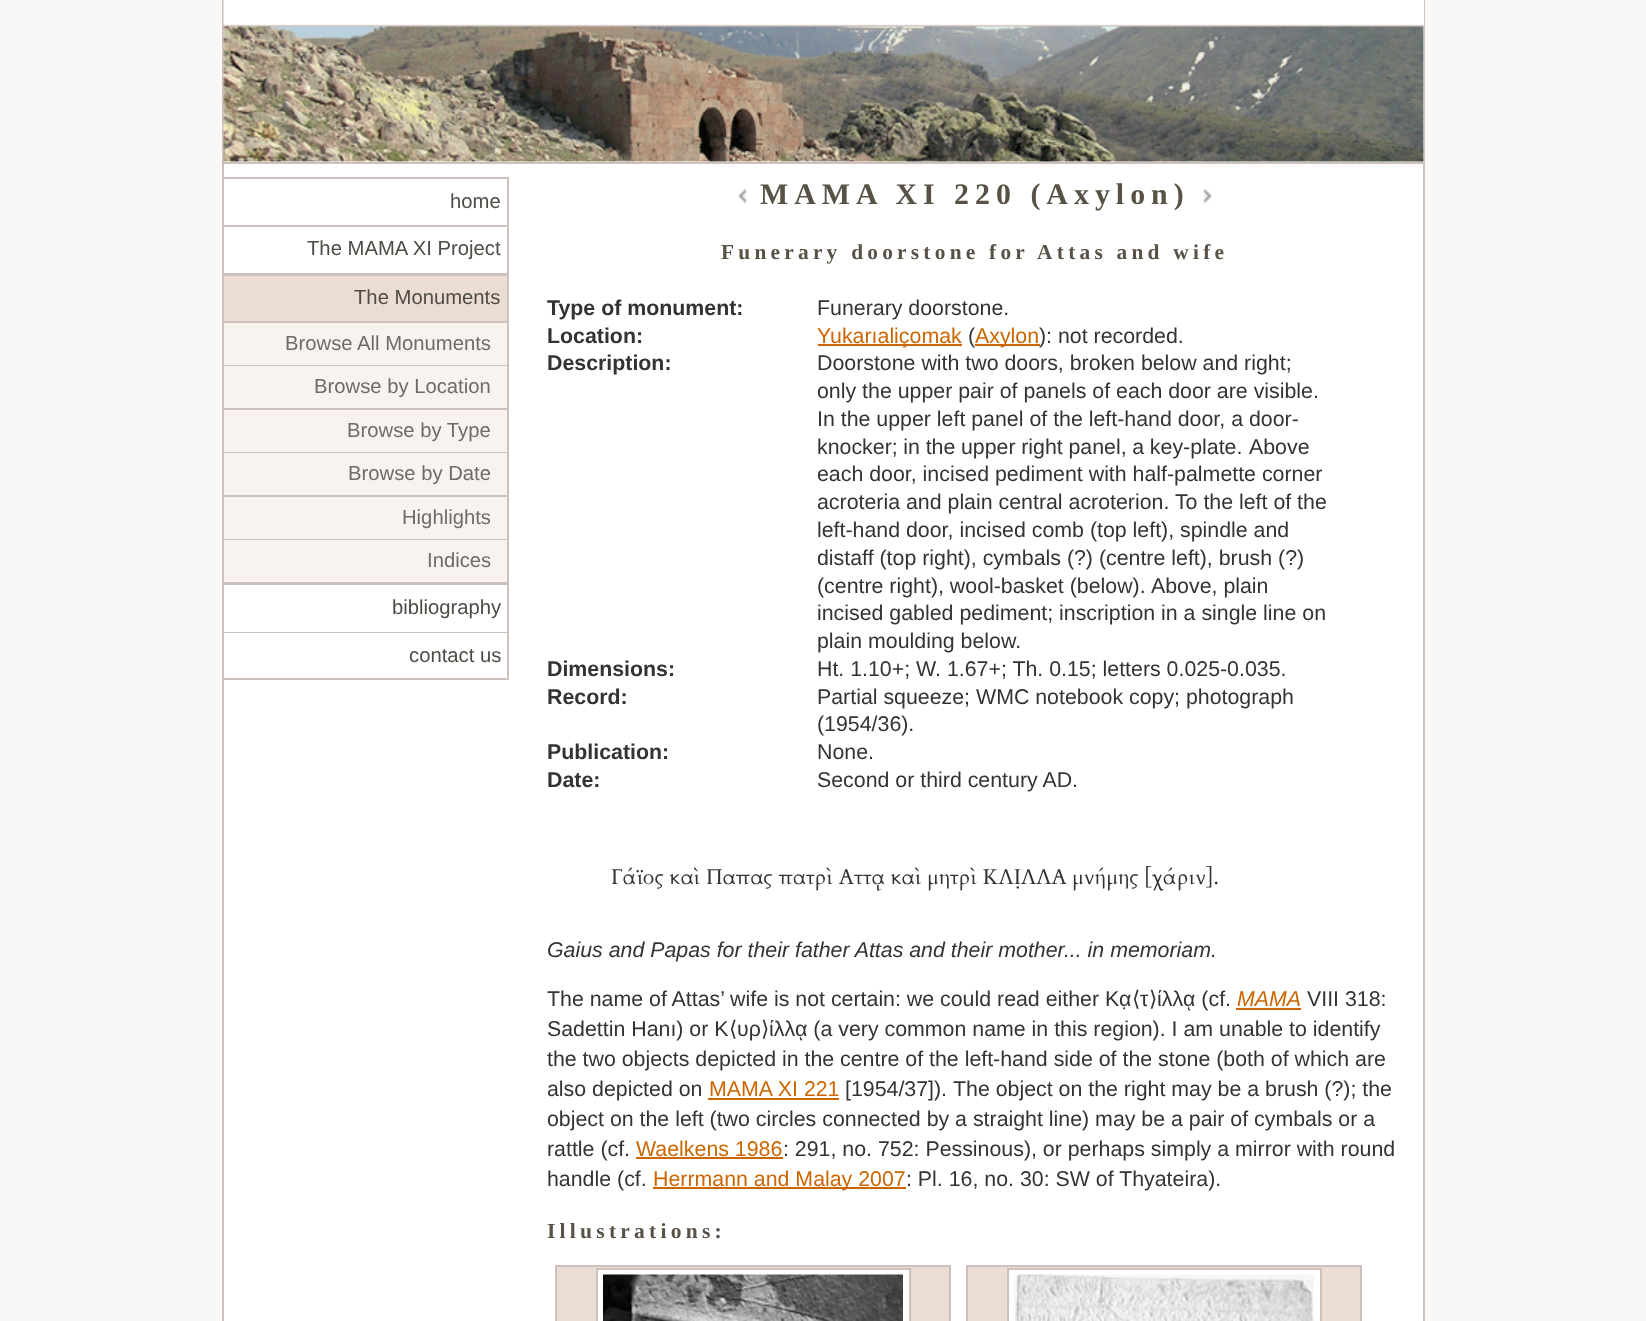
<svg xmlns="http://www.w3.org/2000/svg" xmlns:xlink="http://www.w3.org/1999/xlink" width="1646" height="1321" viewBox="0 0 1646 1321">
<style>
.cls-1{font:20.25px Liberation Sans;fill:#4f4b45}
.cls-2{font:20.25px Liberation Sans;fill:#6f6b66}
.cls-3{font:bold 29.9px Liberation Serif;letter-spacing:6px;fill:#585145}
.cls-4{font:bold 21.35px Liberation Serif;letter-spacing:4.25px;fill:#585145}
.cls-5{font:bold 21.35px Liberation Sans;fill:#333333}
.cls-6{font:21.35px Liberation Sans;fill:#333333}
.cls-7{font:21.35px Liberation Sans;fill:#cc6600}
.cls-8{font:21.35px Cardo;fill:#333333}
.cls-9{font:italic 21.35px Liberation Sans;fill:#333333}
.cls-10{font:21.35px DejaVu Sans;fill:#333333}
.cls-11{font:italic 21.35px Liberation Sans;fill:#cc6600}
.cls-12{font:bold 21.5px Liberation Serif;letter-spacing:4.25px;fill:#585145}
</style>
<rect width="100%" height="100%" fill="#faf8f7"/>
<rect fill="#ffffff" x="224" y="164" width="1199" height="1157"/>
<rect fill="none" stroke="#cdc1be" stroke-width="2" x="223" y="-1" width="1201" height="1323"/>
<rect fill="#ffffff" x="224" y="0" width="1200" height="162"/>
<image xlink:href="image0.png" x="223" y="0" width="1201" height="162"/>
<rect fill="#cdc1be" x="224" y="162" width="1200" height="2"/>
<rect fill="#cdc1be" x="224" y="177" width="285" height="2"/>
<rect fill="#cdc1be" x="507" y="177" width="2" height="503"/>
<rect fill="#cdc1be" x="224" y="225" width="283" height="2"/>
<rect fill="#cdc1be" x="224" y="273" width="283" height="3"/>
<rect fill="#cdc1be" x="224" y="582" width="283" height="3"/>
<rect fill="#ecddd4" x="224" y="276" width="283" height="45"/>
<rect fill="#cdc1be" x="224" y="321" width="283" height="2"/>
<rect fill="#cdc1be" x="224" y="365" width="283" height="1"/>
<rect fill="#f8f3ef" x="224" y="323" width="283" height="42"/>
<rect fill="#cdc1be" x="224" y="408" width="283" height="2"/>
<rect fill="#f8f3ef" x="224" y="366" width="283" height="42"/>
<rect fill="#cdc1be" x="224" y="452" width="283" height="1"/>
<rect fill="#f8f3ef" x="224" y="410" width="283" height="42"/>
<rect fill="#cdc1be" x="224" y="495" width="283" height="2"/>
<rect fill="#f8f3ef" x="224" y="453" width="283" height="42"/>
<rect fill="#cdc1be" x="224" y="539" width="283" height="1"/>
<rect fill="#f8f3ef" x="224" y="497" width="283" height="42"/>
<rect fill="#f8f3ef" x="224" y="540" width="283" height="42"/>
<rect fill="#cdc1be" x="224" y="632" width="283" height="1"/>
<rect fill="#cdc1be" x="224" y="678" width="283" height="2"/>
<image xlink:href="image1.png" x="738" y="188" width="9" height="16"/>
<image xlink:href="image2.png" x="1203" y="188" width="9" height="16"/>
<rect fill="#cc6600" x="818" y="344" width="144" height="2"/>
<rect fill="#cc6600" x="975" y="344" width="65" height="2"/>
<rect fill="#cc6600" x="1236" y="1008" width="65" height="2"/>
<rect fill="#cc6600" x="708" y="1098" width="131" height="2"/>
<rect fill="#cc6600" x="636" y="1157" width="147" height="2"/>
<rect fill="#cc6600" x="653" y="1187" width="253" height="2"/>
<rect fill="#ecddd4" stroke="#cdc1be" stroke-width="2" x="556" y="1266" width="394" height="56"/>
<rect fill="#ffffff" stroke="#cdc1be" stroke-width="2" x="597" y="1269" width="313" height="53"/>
<image xlink:href="image3.png" x="603" y="1274" width="300" height="47"/>
<rect fill="#ecddd4" stroke="#cdc1be" stroke-width="2" x="967" y="1266" width="394" height="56"/>
<rect fill="#ffffff" stroke="#cdc1be" stroke-width="2" x="1008" y="1269" width="313" height="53"/>
<image xlink:href="image4.png" x="1014" y="1274" width="300" height="47"/>
<text class="cls-1" x="450" y="208">home</text>
<text class="cls-1" x="307" y="255">The MAMA XI Project</text>
<text class="cls-1" x="354" y="304">The Monuments</text>
<text class="cls-2" x="285" y="350">Browse All Monuments</text>
<text class="cls-2" x="314" y="393">Browse by Location</text>
<text class="cls-2" x="347" y="437">Browse by Type</text>
<text class="cls-2" x="348" y="480">Browse by Date</text>
<text class="cls-2" x="402" y="524">Highlights</text>
<text class="cls-2" x="427" y="567">Indices</text>
<text class="cls-1" x="392" y="614">bibliography</text>
<text class="cls-1" x="409" y="662">contact us</text>
<text class="cls-3" x="760" y="204">MAMA XI 220 (Axylon)</text>
<text class="cls-4" x="721" y="259">Funerary doorstone for Attas and wife</text>
<text class="cls-5" x="547" y="315">Type of monument:</text>
<text class="cls-6" x="817" y="315">Funerary doorstone.</text>
<text class="cls-5" x="547" y="343">Location:</text>
<text class="cls-7" x="817" y="343">Yukarıaliçomak</text>
<text class="cls-6" x="968" y="343">(</text>
<text class="cls-7" x="975" y="343">Axylon</text>
<text class="cls-6" x="1039" y="343">): not recorded.</text>
<text class="cls-5" x="547" y="370">Description:</text>
<text class="cls-6"><tspan x="817" y="370">Doorstone with two doors, broken below and right;</tspan><tspan x="817" y="398">only the upper pair of panels of each door are visible.</tspan><tspan x="817" y="426">In the upper left panel of the left-hand door, a door-</tspan><tspan x="817" y="454" word-spacing="-0.25">knocker; in the upper right panel, a key-plate.</tspan></text>
<text class="cls-6" x="1249" y="454">Above</text>
<text class="cls-6"><tspan x="817" y="481">each door, incised pediment with half-palmette corner</tspan><tspan x="817" y="509">acroteria and plain central acroterion. To the left of the</tspan><tspan x="817" y="537">left-hand door, incised comb (top left), spindle and</tspan><tspan x="817" y="565">distaff (top right), cymbals (?) (centre left), brush (?)</tspan><tspan x="817" y="593">(centre right), wool-basket (below).</tspan></text>
<text class="cls-6" x="1151" y="593">Above, plain</text>
<text class="cls-6"><tspan x="817" y="620">incised gabled pediment; inscription in a single line on</tspan><tspan x="817" y="648">plain moulding below.</tspan></text>
<text class="cls-5" x="547" y="676">Dimensions:</text>
<text class="cls-6" x="817" y="676">Ht. 1.10+; W. 1.67+; Th. 0.15; letters 0.025-0.035.</text>
<text class="cls-5" x="547" y="704">Record:</text>
<text class="cls-6"><tspan x="817" y="704">Partial squeeze; WMC notebook copy; photograph</tspan><tspan x="817" y="731">(1954/36).</tspan></text>
<text class="cls-5" x="547" y="759">Publication:</text>
<text class="cls-6" x="817" y="759">None.</text>
<text class="cls-5" x="547" y="787">Date:</text>
<text class="cls-6" x="817" y="787">Second or third century AD.</text>
<text class="cls-8" x="611" y="884">Γάϊος καὶ Παπας πατρὶ Αττᾳ καὶ μητρὶ ΚΛΙ̣ΛΛΑ μνήμης [χάριν].</text>
<text class="cls-9" x="547" y="957">Gaius and Papas for their father Attas and their mother... in memoriam.</text>
<text class="cls-6" x="547" y="1006">The name of Attas’ wife is not certain: we could read either Κα̣</text>
<text class="cls-10" x="1132" y="1006">⟨</text>
<text class="cls-6" x="1140" y="1006">τ</text>
<text class="cls-10" x="1149" y="1006">⟩</text>
<text class="cls-6" x="1157" y="1006">ίλλᾳ (cf.</text>
<text class="cls-11" x="1237" y="1006">MAMA</text>
<text class="cls-6" x="1307" y="1006">VIII 318:</text>
<text class="cls-6" x="547" y="1036">Sadettin Hanı) or Κ</text>
<text class="cls-10" x="729" y="1036">⟨</text>
<text class="cls-6" x="737" y="1036">υρ</text>
<text class="cls-10" x="761" y="1036">⟩</text>
<text class="cls-6" x="769" y="1036">ίλλᾳ (a very common name in this region). I am unable to identify</text>
<text class="cls-6"><tspan x="547" y="1066">the two objects depicted in the centre of the left-hand side of the stone (both of which are</tspan><tspan x="547" y="1096">also depicted on</tspan></text>
<text class="cls-7" x="709" y="1096">MAMA XI 221</text>
<text class="cls-6" x="845" y="1096">[1954/37]).</text>
<text class="cls-6" x="953" y="1096">The object on the right may be a brush (?); the</text>
<text class="cls-6"><tspan x="547" y="1126">object on the left (two circles connected by a straight line) may be a pair of cymbals or a</tspan><tspan x="547" y="1156">rattle (cf.</tspan></text>
<text class="cls-7" x="636" y="1156">Waelkens 1986</text>
<text class="cls-6" x="783" y="1156">: 291, no. 752: Pessinous), or perhaps simply a mirror with round</text>
<text class="cls-6" x="547" y="1186">handle (cf.</text>
<text class="cls-7" x="653" y="1186">Herrmann and Malay 2007</text>
<text class="cls-6" x="906" y="1186">: Pl. 16, no. 30: SW of Thyateira).</text>
<text class="cls-12" x="547" y="1238">Illustrations:</text>
</svg>
